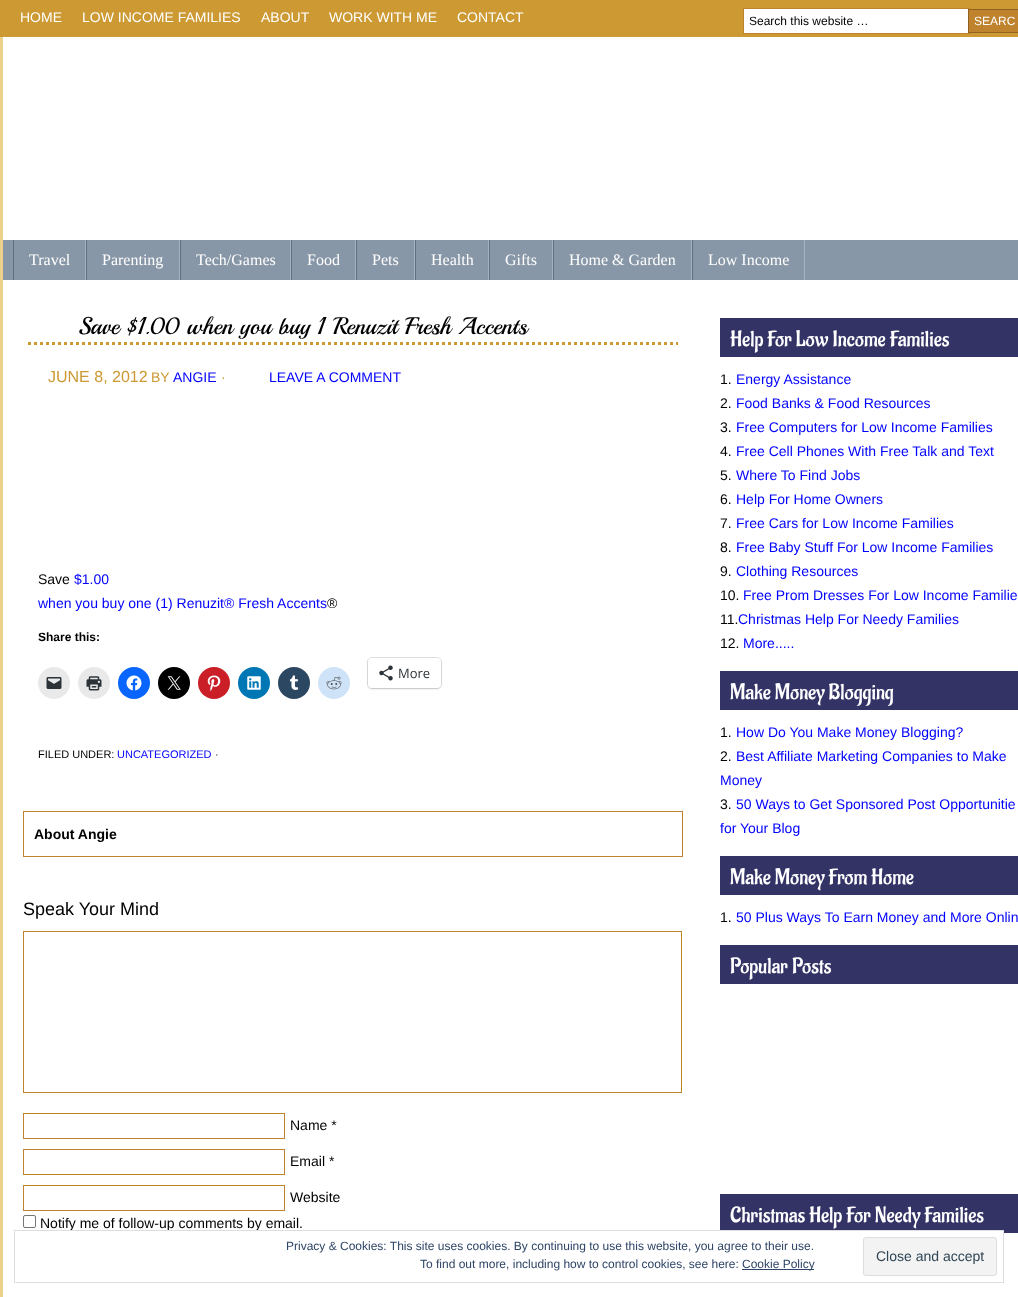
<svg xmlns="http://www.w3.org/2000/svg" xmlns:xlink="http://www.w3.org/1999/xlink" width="1018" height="1297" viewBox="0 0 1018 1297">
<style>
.cls-1{font:14px Liberation Sans;fill:#ffffff}
.cls-2{font:12px Liberation Sans;fill:#000000}
.cls-3{font:12px Liberation Sans;fill:#ffffff}
.cls-4{font:16px Liberation Serif;fill:#ffffff}
.cls-5{font:24px Playball;fill:#000000}
.cls-6{font:16px Liberation Sans;fill:#cc9933}
.cls-7{font:14px Liberation Sans;fill:#cc9933}
.cls-8{font:14px Liberation Sans;fill:#0000ff}
.cls-9{font:14px Liberation Sans;fill:#000000}
.cls-10{font:bold 12px Liberation Sans;fill:#000000}
.cls-11{font:13px Open Sans;fill:#2c3338}
.cls-12{font:11px Liberation Sans;fill:#000000}
.cls-13{font:11px Liberation Sans;fill:#0000ff}
.cls-14{font:bold 14px Liberation Sans;fill:#000000}
.cls-15{font:18px Liberation Sans;fill:#000000}
.cls-16{font:22px Aladin;fill:#ffffff}
.cls-17{font:12px Liberation Sans;fill:#2e4467}
.cls-18{font:14px Liberation Sans;fill:#2e4453}
</style>
<rect width="100%" height="100%" fill="#ffffff"/>
<rect fill="#cc9933" x="0" y="0" width="1018" height="37"/>
<rect fill="#ffffff" x="744" y="9" width="224" height="24"/>
<rect fill="none" stroke="#bf832d" x="743.5" y="8.5" width="226" height="25"/>
<rect fill="#bf832d" x="970" y="10" width="48" height="22"/>
<rect fill="none" stroke="#8f6222" x="968.5" y="9.5" width="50" height="23"/>
<rect fill="#8897a7" x="3" y="240" width="1015" height="40"/>
<rect fill="#a8b3c0" x="85" y="240" width="1" height="40"/>
<rect fill="#607083" x="13" y="240" width="1" height="40"/>
<rect fill="#a8b3c0" x="179" y="240" width="1" height="40"/>
<rect fill="#607083" x="86" y="240" width="1" height="40"/>
<rect fill="#a8b3c0" x="290" y="240" width="1" height="40"/>
<rect fill="#607083" x="180" y="240" width="1" height="40"/>
<rect fill="#a8b3c0" x="355" y="240" width="1" height="40"/>
<rect fill="#607083" x="291" y="240" width="1" height="40"/>
<rect fill="#a8b3c0" x="414" y="240" width="1" height="40"/>
<rect fill="#607083" x="356" y="240" width="1" height="40"/>
<rect fill="#a8b3c0" x="488" y="240" width="1" height="40"/>
<rect fill="#607083" x="415" y="240" width="1" height="40"/>
<rect fill="#a8b3c0" x="552" y="240" width="1" height="40"/>
<rect fill="#607083" x="489" y="240" width="1" height="40"/>
<rect fill="#a8b3c0" x="691" y="240" width="1" height="40"/>
<rect fill="#607083" x="553" y="240" width="1" height="40"/>
<rect fill="#a8b3c0" x="804" y="240" width="1" height="40"/>
<rect fill="#607083" x="692" y="240" width="1" height="40"/>
<path fill="none" stroke="#cc9933" stroke-width="3" stroke-dasharray="3 3" d="M28 343.5H678"/>
<circle fill="#e9e9e9" cx="54" cy="683" r="16"/>
<image xlink:href="image0.png" x="46" y="677" width="16" height="12"/>
<circle fill="#e9e9e9" cx="94" cy="683" r="16"/>
<image xlink:href="image1.png" x="86" y="676" width="16" height="15"/>
<circle fill="#0866ff" cx="134" cy="683" r="16"/>
<image xlink:href="image2.png" x="126" y="675" width="16" height="16"/>
<circle fill="#000000" cx="174" cy="683" r="16"/>
<image xlink:href="image3.png" x="167" y="676" width="14" height="14"/>
<circle fill="#ca1f27" cx="214" cy="683" r="16"/>
<image xlink:href="image4.png" x="207" y="675" width="14" height="16"/>
<circle fill="#0077b5" cx="254" cy="683" r="16"/>
<image xlink:href="image5.png" x="247" y="676" width="14" height="14"/>
<circle fill="#2c4762" cx="294" cy="683" r="16"/>
<image xlink:href="image6.png" x="289" y="675" width="10" height="15"/>
<circle fill="#cee3f8" cx="334" cy="683" r="16"/>
<image xlink:href="image7.png" x="326" y="676" width="16" height="14"/>
<rect fill="none" stroke="#e0e0e0" x="367.5" y="657.5" width="74" height="31" rx="4.5"/>
<rect fill="#000000" fill-opacity="0.12" filter="blur(1px)" x="368" y="659" width="73" height="30" rx="4"/>
<rect fill="#ffffff" x="368" y="658" width="73" height="30" rx="4"/>
<image xlink:href="image8.png" x="379" y="665" width="14" height="16"/>
<rect fill="none" stroke="#bf832d" x="23.5" y="811.5" width="659" height="45"/>
<rect fill="none" stroke="#bf832d" x="23.5" y="931.5" width="658" height="161"/>
<rect fill="none" stroke="#bf832d" x="23.5" y="1113.5" width="261" height="25"/>
<rect fill="none" stroke="#bf832d" x="23.5" y="1149.5" width="261" height="25"/>
<rect fill="none" stroke="#bf832d" x="23.5" y="1185.5" width="261" height="25"/>
<rect fill="none" stroke="#767676" x="23.5" y="1215.5" width="12" height="12" rx="1.5"/>
<rect fill="#333366" x="720" y="318" width="298" height="39"/>
<rect fill="#333366" x="720" y="671" width="298" height="39"/>
<rect fill="#333366" x="720" y="856" width="298" height="39"/>
<rect fill="#333366" x="720" y="945" width="298" height="39"/>
<rect fill="#333366" x="720" y="1194" width="298" height="39"/>
<rect fill="#ecd18b" x="0" y="37" width="3" height="1260"/>
<rect fill="#ffffff" x="720" y="1231" width="283" height="2"/>
<text class="cls-1" x="20" y="22">HOME</text>
<text class="cls-1" x="82" y="22">LOW INCOME FAMILIES</text>
<text class="cls-1" x="261" y="22">ABOUT</text>
<text class="cls-1" x="329" y="22">WORK WITH ME</text>
<text class="cls-1" x="457" y="22">CONTACT</text>
<text class="cls-2" x="749" y="25">Search this website …</text>
<text class="cls-3" x="974" y="25">SEARC</text>
<text class="cls-4" x="29" y="265">Travel</text>
<text class="cls-4" x="102" y="265">Parenting</text>
<text class="cls-4" x="196" y="265">Tech/Games</text>
<text class="cls-4" x="307" y="265">Food</text>
<text class="cls-4" x="372" y="265">Pets</text>
<text class="cls-4" x="431" y="265">Health</text>
<text class="cls-4" x="505" y="265">Gifts</text>
<text class="cls-4" x="569" y="265">Home &amp; Garden</text>
<text class="cls-4" x="708" y="265">Low Income</text>
<text class="cls-5" x="78" y="334">Save $1.00 when you buy 1 Renuzit Fresh Accents</text>
<text class="cls-6" x="48" y="382">JUNE 8, 2012</text>
<text class="cls-7" x="151" y="382">BY</text>
<text class="cls-8" x="173" y="382">ANGIE</text>
<text class="cls-7" x="221" y="382">·</text>
<text class="cls-8" x="269" y="382">LEAVE A COMMENT</text>
<text class="cls-9" x="38" y="584">Save</text>
<text class="cls-8" x="74" y="584">$1.00</text>
<text class="cls-8" x="38" y="608">when you buy one (1) Renuzit® Fresh Accents</text>
<text class="cls-9" x="327" y="608">®</text>
<text class="cls-10" x="38" y="641">Share this:</text>
<text class="cls-11" x="398" y="678">More</text>
<text class="cls-12" x="38" y="758">FILED UNDER:</text>
<text class="cls-13" x="117" y="758">UNCATEGORIZED</text>
<text class="cls-12" x="215" y="758">·</text>
<text class="cls-14" x="34" y="839">About Angie</text>
<text class="cls-15" x="23" y="915">Speak Your Mind</text>
<text class="cls-9" x="290" y="1130">Name *</text>
<text class="cls-9" x="290" y="1166">Email *</text>
<text class="cls-9" x="290" y="1202">Website</text>
<text class="cls-9" x="40" y="1228">Notify me of follow-up comments by email.</text>
<text class="cls-16" x="730" y="346">Help For Low Income Families</text>
<text class="cls-9" x="720" y="384">1.</text>
<text class="cls-8" x="736" y="384">Energy Assistance</text>
<text class="cls-9" x="720" y="408">2.</text>
<text class="cls-8" x="736" y="408">Food Banks &amp; Food Resources</text>
<text class="cls-9" x="720" y="432">3.</text>
<text class="cls-8" x="736" y="432">Free Computers for Low Income Families</text>
<text class="cls-9" x="720" y="456">4.</text>
<text class="cls-8" x="736" y="456">Free Cell Phones With Free Talk and Text</text>
<text class="cls-9" x="720" y="480">5.</text>
<text class="cls-8" x="736" y="480">Where To Find Jobs</text>
<text class="cls-9" x="720" y="504">6.</text>
<text class="cls-8" x="736" y="504">Help For Home Owners</text>
<text class="cls-9" x="720" y="528">7.</text>
<text class="cls-8" x="736" y="528">Free Cars for Low Income Families</text>
<text class="cls-9" x="720" y="552">8.</text>
<text class="cls-8" x="736" y="552">Free Baby Stuff For Low Income Families</text>
<text class="cls-9" x="720" y="576">9.</text>
<text class="cls-8" x="736" y="576">Clothing Resources</text>
<text class="cls-9" x="720" y="600">10.</text>
<text class="cls-8" x="743" y="600">Free Prom Dresses For Low Income Familie</text>
<text class="cls-9" x="720" y="624">11.</text>
<text class="cls-8" x="738" y="624">Christmas Help For Needy Families</text>
<text class="cls-9" x="720" y="648">12.</text>
<text class="cls-8" x="743" y="648">More.....</text>
<text class="cls-16" x="730" y="699">Make Money Blogging</text>
<text class="cls-9" x="720" y="737">1.</text>
<text class="cls-8" x="736" y="737">How Do You Make Money Blogging?</text>
<text class="cls-9" x="720" y="761">2.</text>
<text class="cls-8" x="736" y="761">Best Affiliate Marketing Companies to Make</text>
<text class="cls-8" x="720" y="785">Money</text>
<text class="cls-9" x="720" y="809">3.</text>
<text class="cls-8" x="736" y="809">50 Ways to Get Sponsored Post Opportunitie</text>
<text class="cls-8" x="720" y="833">for Your Blog</text>
<text class="cls-16" x="730" y="884">Make Money From Home</text>
<text class="cls-9" x="720" y="922">1.</text>
<text class="cls-8" x="736" y="922">50 Plus Ways To Earn Money and More Onlin</text>
<text class="cls-16" x="730" y="973">Popular Posts</text>
<text class="cls-16" x="730" y="1222">Christmas Help For Needy Families</text>
<rect fill="none" stroke="#dedede" x="14.5" y="1230.5" width="989" height="52"/>
<text class="cls-17" x="286" y="1250">Privacy &amp; Cookies: This site uses cookies. By continuing to use this website, you agree to their use.</text>
<text class="cls-17" x="420" y="1268">To find out more, including how to control cookies, see here:</text>
<rect fill="#2e4467" x="742" y="1269" width="72" height="1"/>
<text class="cls-17" x="742" y="1268">Cookie Policy</text>
<rect fill="#f3f3f3" stroke="#dedede" x="863.5" y="1237.5" width="133" height="38" rx="2.5"/>
<text class="cls-18" x="876" y="1261">Close and accept</text>
</svg>
